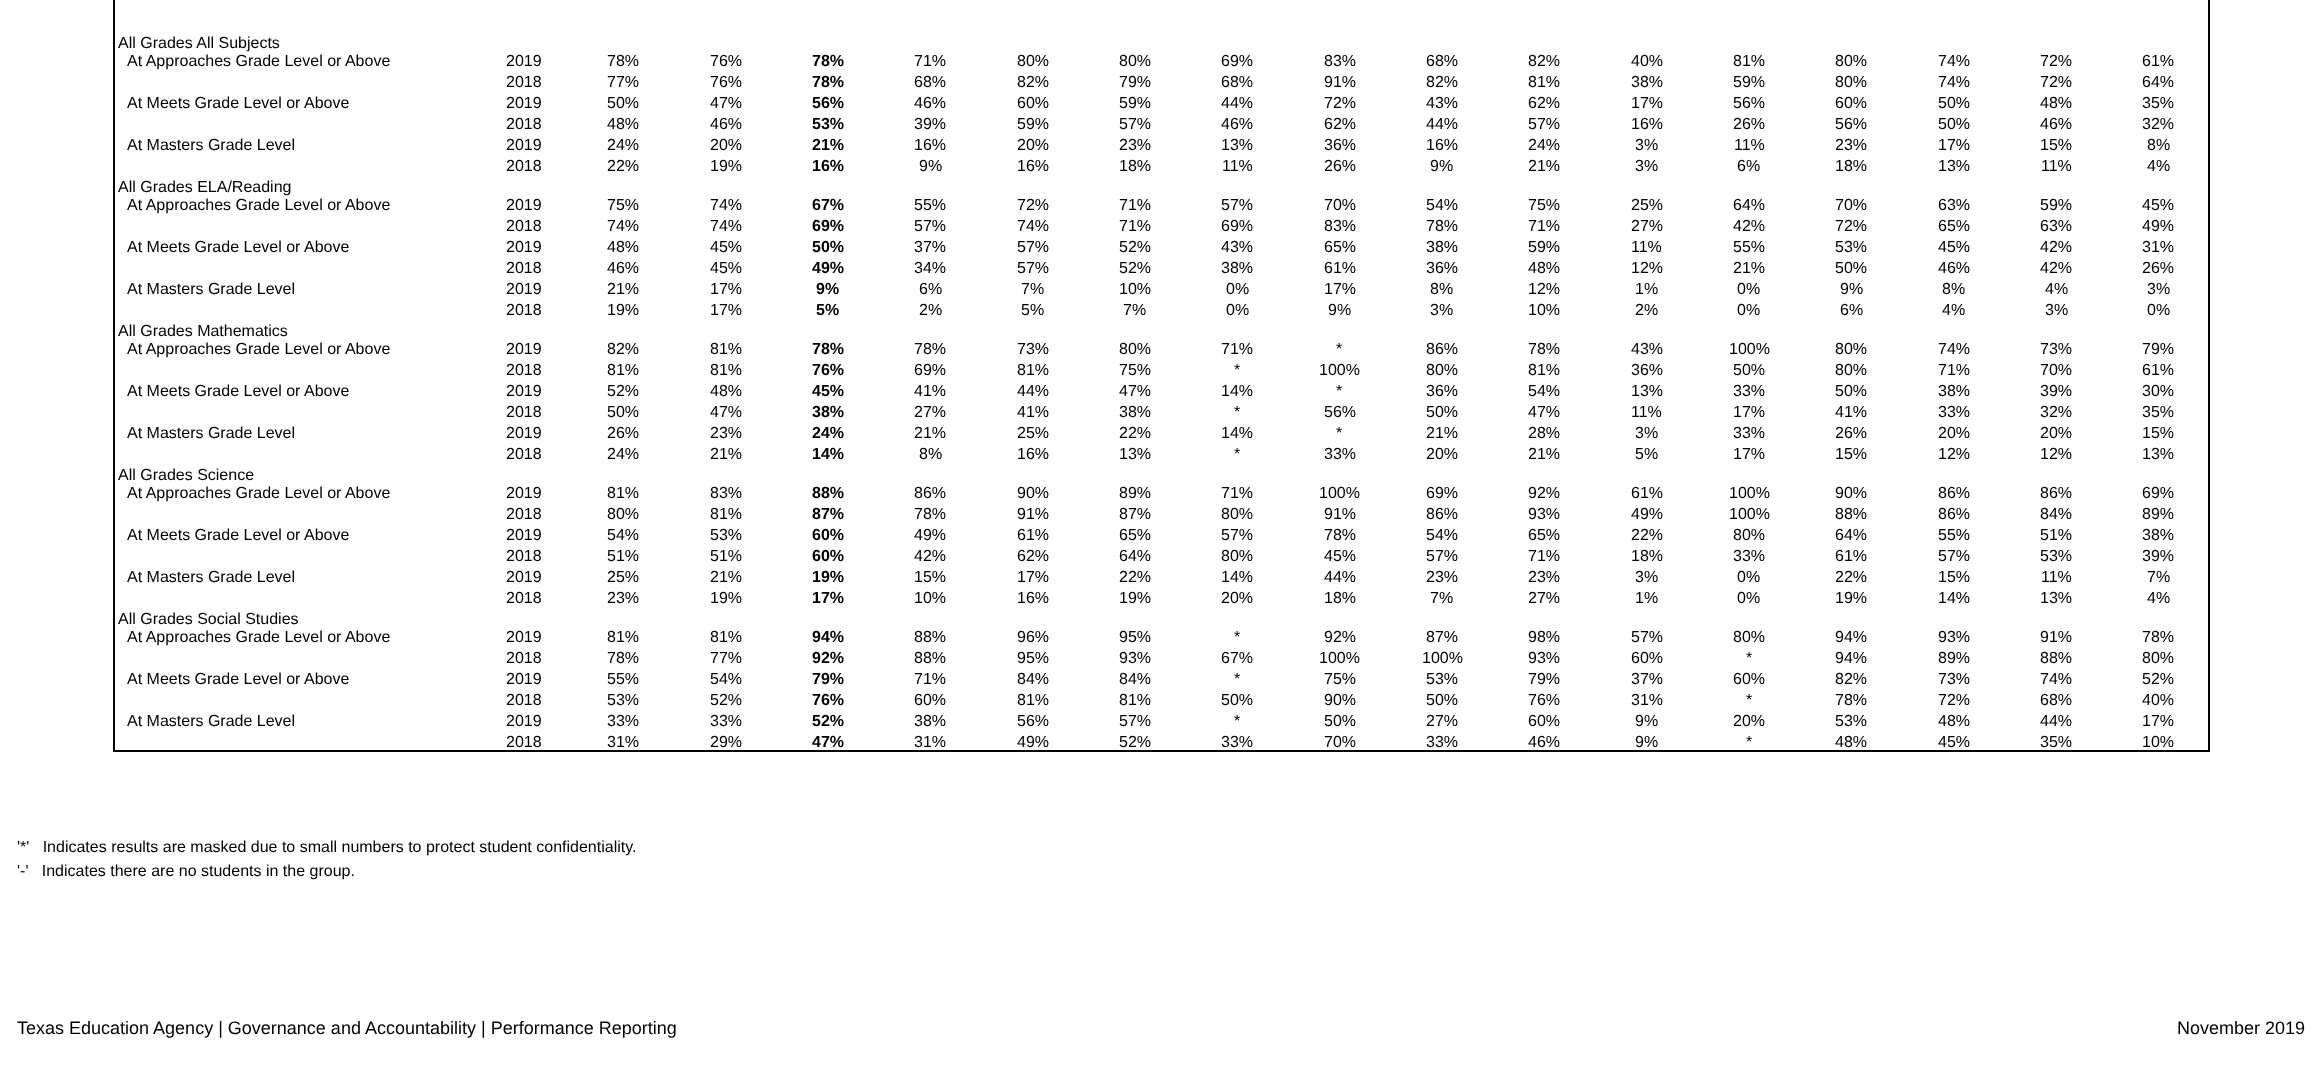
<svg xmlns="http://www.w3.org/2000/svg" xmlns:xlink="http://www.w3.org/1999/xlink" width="2321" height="1081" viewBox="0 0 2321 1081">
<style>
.cls-1{font:16px Liberation Sans;fill:#000000}
.cls-2{font:bold 16px Liberation Sans;fill:#000000}
.cls-3{font:18px Liberation Sans;fill:#000000}
</style>
<rect width="100%" height="100%" fill="#ffffff"/>
<rect fill="#000000" x="2208" y="0" width="2" height="752"/>
<rect fill="#000000" x="113" y="0" width="2" height="752"/>
<rect fill="#000000" x="113" y="750" width="2097" height="2"/>
<text class="cls-1" x="118" y="48">All Grades All Subjects</text>
<text class="cls-1" x="127" y="66">At Approaches Grade Level or Above</text>
<text class="cls-1" x="506" y="66">2019</text>
<text class="cls-1" x="607" y="66">78%</text>
<text class="cls-1" x="710" y="66">76%</text>
<text class="cls-2" x="812" y="66">78%</text>
<text class="cls-1" x="914" y="66">71%</text>
<text class="cls-1" x="1017" y="66">80%</text>
<text class="cls-1" x="1119" y="66">80%</text>
<text class="cls-1" x="1221" y="66">69%</text>
<text class="cls-1" x="1324" y="66">83%</text>
<text class="cls-1" x="1426" y="66">68%</text>
<text class="cls-1" x="1528" y="66">82%</text>
<text class="cls-1" x="1631" y="66">40%</text>
<text class="cls-1" x="1733" y="66">81%</text>
<text class="cls-1" x="1835" y="66">80%</text>
<text class="cls-1" x="1938" y="66">74%</text>
<text class="cls-1" x="2040" y="66">72%</text>
<text class="cls-1" x="2142" y="66">61%</text>
<text class="cls-1" x="506" y="87">2018</text>
<text class="cls-1" x="607" y="87">77%</text>
<text class="cls-1" x="710" y="87">76%</text>
<text class="cls-2" x="812" y="87">78%</text>
<text class="cls-1" x="914" y="87">68%</text>
<text class="cls-1" x="1017" y="87">82%</text>
<text class="cls-1" x="1119" y="87">79%</text>
<text class="cls-1" x="1221" y="87">68%</text>
<text class="cls-1" x="1324" y="87">91%</text>
<text class="cls-1" x="1426" y="87">82%</text>
<text class="cls-1" x="1528" y="87">81%</text>
<text class="cls-1" x="1631" y="87">38%</text>
<text class="cls-1" x="1733" y="87">59%</text>
<text class="cls-1" x="1835" y="87">80%</text>
<text class="cls-1" x="1938" y="87">74%</text>
<text class="cls-1" x="2040" y="87">72%</text>
<text class="cls-1" x="2142" y="87">64%</text>
<text class="cls-1" x="127" y="108">At Meets Grade Level or Above</text>
<text class="cls-1" x="506" y="108">2019</text>
<text class="cls-1" x="607" y="108">50%</text>
<text class="cls-1" x="710" y="108">47%</text>
<text class="cls-2" x="812" y="108">56%</text>
<text class="cls-1" x="914" y="108">46%</text>
<text class="cls-1" x="1017" y="108">60%</text>
<text class="cls-1" x="1119" y="108">59%</text>
<text class="cls-1" x="1221" y="108">44%</text>
<text class="cls-1" x="1324" y="108">72%</text>
<text class="cls-1" x="1426" y="108">43%</text>
<text class="cls-1" x="1528" y="108">62%</text>
<text class="cls-1" x="1631" y="108">17%</text>
<text class="cls-1" x="1733" y="108">56%</text>
<text class="cls-1" x="1835" y="108">60%</text>
<text class="cls-1" x="1938" y="108">50%</text>
<text class="cls-1" x="2040" y="108">48%</text>
<text class="cls-1" x="2142" y="108">35%</text>
<text class="cls-1" x="506" y="129">2018</text>
<text class="cls-1" x="607" y="129">48%</text>
<text class="cls-1" x="710" y="129">46%</text>
<text class="cls-2" x="812" y="129">53%</text>
<text class="cls-1" x="914" y="129">39%</text>
<text class="cls-1" x="1017" y="129">59%</text>
<text class="cls-1" x="1119" y="129">57%</text>
<text class="cls-1" x="1221" y="129">46%</text>
<text class="cls-1" x="1324" y="129">62%</text>
<text class="cls-1" x="1426" y="129">44%</text>
<text class="cls-1" x="1528" y="129">57%</text>
<text class="cls-1" x="1631" y="129">16%</text>
<text class="cls-1" x="1733" y="129">26%</text>
<text class="cls-1" x="1835" y="129">56%</text>
<text class="cls-1" x="1938" y="129">50%</text>
<text class="cls-1" x="2040" y="129">46%</text>
<text class="cls-1" x="2142" y="129">32%</text>
<text class="cls-1" x="127" y="150">At Masters Grade Level</text>
<text class="cls-1" x="506" y="150">2019</text>
<text class="cls-1" x="607" y="150">24%</text>
<text class="cls-1" x="710" y="150">20%</text>
<text class="cls-2" x="812" y="150">21%</text>
<text class="cls-1" x="914" y="150">16%</text>
<text class="cls-1" x="1017" y="150">20%</text>
<text class="cls-1" x="1119" y="150">23%</text>
<text class="cls-1" x="1221" y="150">13%</text>
<text class="cls-1" x="1324" y="150">36%</text>
<text class="cls-1" x="1426" y="150">16%</text>
<text class="cls-1" x="1528" y="150">24%</text>
<text class="cls-1" x="1635" y="150">3%</text>
<text class="cls-1" x="1734" y="150">11%</text>
<text class="cls-1" x="1835" y="150">23%</text>
<text class="cls-1" x="1938" y="150">17%</text>
<text class="cls-1" x="2040" y="150">15%</text>
<text class="cls-1" x="2147" y="150">8%</text>
<text class="cls-1" x="506" y="171">2018</text>
<text class="cls-1" x="607" y="171">22%</text>
<text class="cls-1" x="710" y="171">19%</text>
<text class="cls-2" x="812" y="171">16%</text>
<text class="cls-1" x="919" y="171">9%</text>
<text class="cls-1" x="1017" y="171">16%</text>
<text class="cls-1" x="1119" y="171">18%</text>
<text class="cls-1" x="1222" y="171">11%</text>
<text class="cls-1" x="1324" y="171">26%</text>
<text class="cls-1" x="1430" y="171">9%</text>
<text class="cls-1" x="1528" y="171">21%</text>
<text class="cls-1" x="1635" y="171">3%</text>
<text class="cls-1" x="1737" y="171">6%</text>
<text class="cls-1" x="1835" y="171">18%</text>
<text class="cls-1" x="1938" y="171">13%</text>
<text class="cls-1" x="2041" y="171">11%</text>
<text class="cls-1" x="2147" y="171">4%</text>
<text class="cls-1" x="118" y="192">All Grades ELA/Reading</text>
<text class="cls-1" x="127" y="210">At Approaches Grade Level or Above</text>
<text class="cls-1" x="506" y="210">2019</text>
<text class="cls-1" x="607" y="210">75%</text>
<text class="cls-1" x="710" y="210">74%</text>
<text class="cls-2" x="812" y="210">67%</text>
<text class="cls-1" x="914" y="210">55%</text>
<text class="cls-1" x="1017" y="210">72%</text>
<text class="cls-1" x="1119" y="210">71%</text>
<text class="cls-1" x="1221" y="210">57%</text>
<text class="cls-1" x="1324" y="210">70%</text>
<text class="cls-1" x="1426" y="210">54%</text>
<text class="cls-1" x="1528" y="210">75%</text>
<text class="cls-1" x="1631" y="210">25%</text>
<text class="cls-1" x="1733" y="210">64%</text>
<text class="cls-1" x="1835" y="210">70%</text>
<text class="cls-1" x="1938" y="210">63%</text>
<text class="cls-1" x="2040" y="210">59%</text>
<text class="cls-1" x="2142" y="210">45%</text>
<text class="cls-1" x="506" y="231">2018</text>
<text class="cls-1" x="607" y="231">74%</text>
<text class="cls-1" x="710" y="231">74%</text>
<text class="cls-2" x="812" y="231">69%</text>
<text class="cls-1" x="914" y="231">57%</text>
<text class="cls-1" x="1017" y="231">74%</text>
<text class="cls-1" x="1119" y="231">71%</text>
<text class="cls-1" x="1221" y="231">69%</text>
<text class="cls-1" x="1324" y="231">83%</text>
<text class="cls-1" x="1426" y="231">78%</text>
<text class="cls-1" x="1528" y="231">71%</text>
<text class="cls-1" x="1631" y="231">27%</text>
<text class="cls-1" x="1733" y="231">42%</text>
<text class="cls-1" x="1835" y="231">72%</text>
<text class="cls-1" x="1938" y="231">65%</text>
<text class="cls-1" x="2040" y="231">63%</text>
<text class="cls-1" x="2142" y="231">49%</text>
<text class="cls-1" x="127" y="252">At Meets Grade Level or Above</text>
<text class="cls-1" x="506" y="252">2019</text>
<text class="cls-1" x="607" y="252">48%</text>
<text class="cls-1" x="710" y="252">45%</text>
<text class="cls-2" x="812" y="252">50%</text>
<text class="cls-1" x="914" y="252">37%</text>
<text class="cls-1" x="1017" y="252">57%</text>
<text class="cls-1" x="1119" y="252">52%</text>
<text class="cls-1" x="1221" y="252">43%</text>
<text class="cls-1" x="1324" y="252">65%</text>
<text class="cls-1" x="1426" y="252">38%</text>
<text class="cls-1" x="1528" y="252">59%</text>
<text class="cls-1" x="1631" y="252">11%</text>
<text class="cls-1" x="1733" y="252">55%</text>
<text class="cls-1" x="1835" y="252">53%</text>
<text class="cls-1" x="1938" y="252">45%</text>
<text class="cls-1" x="2040" y="252">42%</text>
<text class="cls-1" x="2142" y="252">31%</text>
<text class="cls-1" x="506" y="273">2018</text>
<text class="cls-1" x="607" y="273">46%</text>
<text class="cls-1" x="710" y="273">45%</text>
<text class="cls-2" x="812" y="273">49%</text>
<text class="cls-1" x="914" y="273">34%</text>
<text class="cls-1" x="1017" y="273">57%</text>
<text class="cls-1" x="1119" y="273">52%</text>
<text class="cls-1" x="1221" y="273">38%</text>
<text class="cls-1" x="1324" y="273">61%</text>
<text class="cls-1" x="1426" y="273">36%</text>
<text class="cls-1" x="1528" y="273">48%</text>
<text class="cls-1" x="1631" y="273">12%</text>
<text class="cls-1" x="1733" y="273">21%</text>
<text class="cls-1" x="1835" y="273">50%</text>
<text class="cls-1" x="1938" y="273">46%</text>
<text class="cls-1" x="2040" y="273">42%</text>
<text class="cls-1" x="2142" y="273">26%</text>
<text class="cls-1" x="127" y="294">At Masters Grade Level</text>
<text class="cls-1" x="506" y="294">2019</text>
<text class="cls-1" x="607" y="294">21%</text>
<text class="cls-1" x="710" y="294">17%</text>
<text class="cls-2" x="816" y="294">9%</text>
<text class="cls-1" x="919" y="294">6%</text>
<text class="cls-1" x="1021" y="294">7%</text>
<text class="cls-1" x="1119" y="294">10%</text>
<text class="cls-1" x="1226" y="294">0%</text>
<text class="cls-1" x="1324" y="294">17%</text>
<text class="cls-1" x="1430" y="294">8%</text>
<text class="cls-1" x="1528" y="294">12%</text>
<text class="cls-1" x="1635" y="294">1%</text>
<text class="cls-1" x="1737" y="294">0%</text>
<text class="cls-1" x="1840" y="294">9%</text>
<text class="cls-1" x="1942" y="294">8%</text>
<text class="cls-1" x="2045" y="294">4%</text>
<text class="cls-1" x="2147" y="294">3%</text>
<text class="cls-1" x="506" y="315">2018</text>
<text class="cls-1" x="607" y="315">19%</text>
<text class="cls-1" x="710" y="315">17%</text>
<text class="cls-2" x="816" y="315">5%</text>
<text class="cls-1" x="919" y="315">2%</text>
<text class="cls-1" x="1021" y="315">5%</text>
<text class="cls-1" x="1123" y="315">7%</text>
<text class="cls-1" x="1226" y="315">0%</text>
<text class="cls-1" x="1328" y="315">9%</text>
<text class="cls-1" x="1430" y="315">3%</text>
<text class="cls-1" x="1528" y="315">10%</text>
<text class="cls-1" x="1635" y="315">2%</text>
<text class="cls-1" x="1737" y="315">0%</text>
<text class="cls-1" x="1840" y="315">6%</text>
<text class="cls-1" x="1942" y="315">4%</text>
<text class="cls-1" x="2045" y="315">3%</text>
<text class="cls-1" x="2147" y="315">0%</text>
<text class="cls-1" x="118" y="336">All Grades Mathematics</text>
<text class="cls-1" x="127" y="354">At Approaches Grade Level or Above</text>
<text class="cls-1" x="506" y="354">2019</text>
<text class="cls-1" x="607" y="354">82%</text>
<text class="cls-1" x="710" y="354">81%</text>
<text class="cls-2" x="812" y="354">78%</text>
<text class="cls-1" x="914" y="354">78%</text>
<text class="cls-1" x="1017" y="354">73%</text>
<text class="cls-1" x="1119" y="354">80%</text>
<text class="cls-1" x="1221" y="354">71%</text>
<text class="cls-1" x="1336" y="354">*</text>
<text class="cls-1" x="1426" y="354">86%</text>
<text class="cls-1" x="1528" y="354">78%</text>
<text class="cls-1" x="1631" y="354">43%</text>
<text class="cls-1" x="1729" y="354">100%</text>
<text class="cls-1" x="1835" y="354">80%</text>
<text class="cls-1" x="1938" y="354">74%</text>
<text class="cls-1" x="2040" y="354">73%</text>
<text class="cls-1" x="2142" y="354">79%</text>
<text class="cls-1" x="506" y="375">2018</text>
<text class="cls-1" x="607" y="375">81%</text>
<text class="cls-1" x="710" y="375">81%</text>
<text class="cls-2" x="812" y="375">76%</text>
<text class="cls-1" x="914" y="375">69%</text>
<text class="cls-1" x="1017" y="375">81%</text>
<text class="cls-1" x="1119" y="375">75%</text>
<text class="cls-1" x="1234" y="375">*</text>
<text class="cls-1" x="1319" y="375">100%</text>
<text class="cls-1" x="1426" y="375">80%</text>
<text class="cls-1" x="1528" y="375">81%</text>
<text class="cls-1" x="1631" y="375">36%</text>
<text class="cls-1" x="1733" y="375">50%</text>
<text class="cls-1" x="1835" y="375">80%</text>
<text class="cls-1" x="1938" y="375">71%</text>
<text class="cls-1" x="2040" y="375">70%</text>
<text class="cls-1" x="2142" y="375">61%</text>
<text class="cls-1" x="127" y="396">At Meets Grade Level or Above</text>
<text class="cls-1" x="506" y="396">2019</text>
<text class="cls-1" x="607" y="396">52%</text>
<text class="cls-1" x="710" y="396">48%</text>
<text class="cls-2" x="812" y="396">45%</text>
<text class="cls-1" x="914" y="396">41%</text>
<text class="cls-1" x="1017" y="396">44%</text>
<text class="cls-1" x="1119" y="396">47%</text>
<text class="cls-1" x="1221" y="396">14%</text>
<text class="cls-1" x="1336" y="396">*</text>
<text class="cls-1" x="1426" y="396">36%</text>
<text class="cls-1" x="1528" y="396">54%</text>
<text class="cls-1" x="1631" y="396">13%</text>
<text class="cls-1" x="1733" y="396">33%</text>
<text class="cls-1" x="1835" y="396">50%</text>
<text class="cls-1" x="1938" y="396">38%</text>
<text class="cls-1" x="2040" y="396">39%</text>
<text class="cls-1" x="2142" y="396">30%</text>
<text class="cls-1" x="506" y="417">2018</text>
<text class="cls-1" x="607" y="417">50%</text>
<text class="cls-1" x="710" y="417">47%</text>
<text class="cls-2" x="812" y="417">38%</text>
<text class="cls-1" x="914" y="417">27%</text>
<text class="cls-1" x="1017" y="417">41%</text>
<text class="cls-1" x="1119" y="417">38%</text>
<text class="cls-1" x="1234" y="417">*</text>
<text class="cls-1" x="1324" y="417">56%</text>
<text class="cls-1" x="1426" y="417">50%</text>
<text class="cls-1" x="1528" y="417">47%</text>
<text class="cls-1" x="1631" y="417">11%</text>
<text class="cls-1" x="1733" y="417">17%</text>
<text class="cls-1" x="1835" y="417">41%</text>
<text class="cls-1" x="1938" y="417">33%</text>
<text class="cls-1" x="2040" y="417">32%</text>
<text class="cls-1" x="2142" y="417">35%</text>
<text class="cls-1" x="127" y="438">At Masters Grade Level</text>
<text class="cls-1" x="506" y="438">2019</text>
<text class="cls-1" x="607" y="438">26%</text>
<text class="cls-1" x="710" y="438">23%</text>
<text class="cls-2" x="812" y="438">24%</text>
<text class="cls-1" x="914" y="438">21%</text>
<text class="cls-1" x="1017" y="438">25%</text>
<text class="cls-1" x="1119" y="438">22%</text>
<text class="cls-1" x="1221" y="438">14%</text>
<text class="cls-1" x="1336" y="438">*</text>
<text class="cls-1" x="1426" y="438">21%</text>
<text class="cls-1" x="1528" y="438">28%</text>
<text class="cls-1" x="1635" y="438">3%</text>
<text class="cls-1" x="1733" y="438">33%</text>
<text class="cls-1" x="1835" y="438">26%</text>
<text class="cls-1" x="1938" y="438">20%</text>
<text class="cls-1" x="2040" y="438">20%</text>
<text class="cls-1" x="2142" y="438">15%</text>
<text class="cls-1" x="506" y="459">2018</text>
<text class="cls-1" x="607" y="459">24%</text>
<text class="cls-1" x="710" y="459">21%</text>
<text class="cls-2" x="812" y="459">14%</text>
<text class="cls-1" x="919" y="459">8%</text>
<text class="cls-1" x="1017" y="459">16%</text>
<text class="cls-1" x="1119" y="459">13%</text>
<text class="cls-1" x="1234" y="459">*</text>
<text class="cls-1" x="1324" y="459">33%</text>
<text class="cls-1" x="1426" y="459">20%</text>
<text class="cls-1" x="1528" y="459">21%</text>
<text class="cls-1" x="1635" y="459">5%</text>
<text class="cls-1" x="1733" y="459">17%</text>
<text class="cls-1" x="1835" y="459">15%</text>
<text class="cls-1" x="1938" y="459">12%</text>
<text class="cls-1" x="2040" y="459">12%</text>
<text class="cls-1" x="2142" y="459">13%</text>
<text class="cls-1" x="118" y="480">All Grades Science</text>
<text class="cls-1" x="127" y="498">At Approaches Grade Level or Above</text>
<text class="cls-1" x="506" y="498">2019</text>
<text class="cls-1" x="607" y="498">81%</text>
<text class="cls-1" x="710" y="498">83%</text>
<text class="cls-2" x="812" y="498">88%</text>
<text class="cls-1" x="914" y="498">86%</text>
<text class="cls-1" x="1017" y="498">90%</text>
<text class="cls-1" x="1119" y="498">89%</text>
<text class="cls-1" x="1221" y="498">71%</text>
<text class="cls-1" x="1319" y="498">100%</text>
<text class="cls-1" x="1426" y="498">69%</text>
<text class="cls-1" x="1528" y="498">92%</text>
<text class="cls-1" x="1631" y="498">61%</text>
<text class="cls-1" x="1729" y="498">100%</text>
<text class="cls-1" x="1835" y="498">90%</text>
<text class="cls-1" x="1938" y="498">86%</text>
<text class="cls-1" x="2040" y="498">86%</text>
<text class="cls-1" x="2142" y="498">69%</text>
<text class="cls-1" x="506" y="519">2018</text>
<text class="cls-1" x="607" y="519">80%</text>
<text class="cls-1" x="710" y="519">81%</text>
<text class="cls-2" x="812" y="519">87%</text>
<text class="cls-1" x="914" y="519">78%</text>
<text class="cls-1" x="1017" y="519">91%</text>
<text class="cls-1" x="1119" y="519">87%</text>
<text class="cls-1" x="1221" y="519">80%</text>
<text class="cls-1" x="1324" y="519">91%</text>
<text class="cls-1" x="1426" y="519">86%</text>
<text class="cls-1" x="1528" y="519">93%</text>
<text class="cls-1" x="1631" y="519">49%</text>
<text class="cls-1" x="1729" y="519">100%</text>
<text class="cls-1" x="1835" y="519">88%</text>
<text class="cls-1" x="1938" y="519">86%</text>
<text class="cls-1" x="2040" y="519">84%</text>
<text class="cls-1" x="2142" y="519">89%</text>
<text class="cls-1" x="127" y="540">At Meets Grade Level or Above</text>
<text class="cls-1" x="506" y="540">2019</text>
<text class="cls-1" x="607" y="540">54%</text>
<text class="cls-1" x="710" y="540">53%</text>
<text class="cls-2" x="812" y="540">60%</text>
<text class="cls-1" x="914" y="540">49%</text>
<text class="cls-1" x="1017" y="540">61%</text>
<text class="cls-1" x="1119" y="540">65%</text>
<text class="cls-1" x="1221" y="540">57%</text>
<text class="cls-1" x="1324" y="540">78%</text>
<text class="cls-1" x="1426" y="540">54%</text>
<text class="cls-1" x="1528" y="540">65%</text>
<text class="cls-1" x="1631" y="540">22%</text>
<text class="cls-1" x="1733" y="540">80%</text>
<text class="cls-1" x="1835" y="540">64%</text>
<text class="cls-1" x="1938" y="540">55%</text>
<text class="cls-1" x="2040" y="540">51%</text>
<text class="cls-1" x="2142" y="540">38%</text>
<text class="cls-1" x="506" y="561">2018</text>
<text class="cls-1" x="607" y="561">51%</text>
<text class="cls-1" x="710" y="561">51%</text>
<text class="cls-2" x="812" y="561">60%</text>
<text class="cls-1" x="914" y="561">42%</text>
<text class="cls-1" x="1017" y="561">62%</text>
<text class="cls-1" x="1119" y="561">64%</text>
<text class="cls-1" x="1221" y="561">80%</text>
<text class="cls-1" x="1324" y="561">45%</text>
<text class="cls-1" x="1426" y="561">57%</text>
<text class="cls-1" x="1528" y="561">71%</text>
<text class="cls-1" x="1631" y="561">18%</text>
<text class="cls-1" x="1733" y="561">33%</text>
<text class="cls-1" x="1835" y="561">61%</text>
<text class="cls-1" x="1938" y="561">57%</text>
<text class="cls-1" x="2040" y="561">53%</text>
<text class="cls-1" x="2142" y="561">39%</text>
<text class="cls-1" x="127" y="582">At Masters Grade Level</text>
<text class="cls-1" x="506" y="582">2019</text>
<text class="cls-1" x="607" y="582">25%</text>
<text class="cls-1" x="710" y="582">21%</text>
<text class="cls-2" x="812" y="582">19%</text>
<text class="cls-1" x="914" y="582">15%</text>
<text class="cls-1" x="1017" y="582">17%</text>
<text class="cls-1" x="1119" y="582">22%</text>
<text class="cls-1" x="1221" y="582">14%</text>
<text class="cls-1" x="1324" y="582">44%</text>
<text class="cls-1" x="1426" y="582">23%</text>
<text class="cls-1" x="1528" y="582">23%</text>
<text class="cls-1" x="1635" y="582">3%</text>
<text class="cls-1" x="1737" y="582">0%</text>
<text class="cls-1" x="1835" y="582">22%</text>
<text class="cls-1" x="1938" y="582">15%</text>
<text class="cls-1" x="2041" y="582">11%</text>
<text class="cls-1" x="2147" y="582">7%</text>
<text class="cls-1" x="506" y="603">2018</text>
<text class="cls-1" x="607" y="603">23%</text>
<text class="cls-1" x="710" y="603">19%</text>
<text class="cls-2" x="812" y="603">17%</text>
<text class="cls-1" x="914" y="603">10%</text>
<text class="cls-1" x="1017" y="603">16%</text>
<text class="cls-1" x="1119" y="603">19%</text>
<text class="cls-1" x="1221" y="603">20%</text>
<text class="cls-1" x="1324" y="603">18%</text>
<text class="cls-1" x="1430" y="603">7%</text>
<text class="cls-1" x="1528" y="603">27%</text>
<text class="cls-1" x="1635" y="603">1%</text>
<text class="cls-1" x="1737" y="603">0%</text>
<text class="cls-1" x="1835" y="603">19%</text>
<text class="cls-1" x="1938" y="603">14%</text>
<text class="cls-1" x="2040" y="603">13%</text>
<text class="cls-1" x="2147" y="603">4%</text>
<text class="cls-1" x="118" y="624">All Grades Social Studies</text>
<text class="cls-1" x="127" y="642">At Approaches Grade Level or Above</text>
<text class="cls-1" x="506" y="642">2019</text>
<text class="cls-1" x="607" y="642">81%</text>
<text class="cls-1" x="710" y="642">81%</text>
<text class="cls-2" x="812" y="642">94%</text>
<text class="cls-1" x="914" y="642">88%</text>
<text class="cls-1" x="1017" y="642">96%</text>
<text class="cls-1" x="1119" y="642">95%</text>
<text class="cls-1" x="1234" y="642">*</text>
<text class="cls-1" x="1324" y="642">92%</text>
<text class="cls-1" x="1426" y="642">87%</text>
<text class="cls-1" x="1528" y="642">98%</text>
<text class="cls-1" x="1631" y="642">57%</text>
<text class="cls-1" x="1733" y="642">80%</text>
<text class="cls-1" x="1835" y="642">94%</text>
<text class="cls-1" x="1938" y="642">93%</text>
<text class="cls-1" x="2040" y="642">91%</text>
<text class="cls-1" x="2142" y="642">78%</text>
<text class="cls-1" x="506" y="663">2018</text>
<text class="cls-1" x="607" y="663">78%</text>
<text class="cls-1" x="710" y="663">77%</text>
<text class="cls-2" x="812" y="663">92%</text>
<text class="cls-1" x="914" y="663">88%</text>
<text class="cls-1" x="1017" y="663">95%</text>
<text class="cls-1" x="1119" y="663">93%</text>
<text class="cls-1" x="1221" y="663">67%</text>
<text class="cls-1" x="1319" y="663">100%</text>
<text class="cls-1" x="1422" y="663">100%</text>
<text class="cls-1" x="1528" y="663">93%</text>
<text class="cls-1" x="1631" y="663">60%</text>
<text class="cls-1" x="1746" y="663">*</text>
<text class="cls-1" x="1835" y="663">94%</text>
<text class="cls-1" x="1938" y="663">89%</text>
<text class="cls-1" x="2040" y="663">88%</text>
<text class="cls-1" x="2142" y="663">80%</text>
<text class="cls-1" x="127" y="684">At Meets Grade Level or Above</text>
<text class="cls-1" x="506" y="684">2019</text>
<text class="cls-1" x="607" y="684">55%</text>
<text class="cls-1" x="710" y="684">54%</text>
<text class="cls-2" x="812" y="684">79%</text>
<text class="cls-1" x="914" y="684">71%</text>
<text class="cls-1" x="1017" y="684">84%</text>
<text class="cls-1" x="1119" y="684">84%</text>
<text class="cls-1" x="1234" y="684">*</text>
<text class="cls-1" x="1324" y="684">75%</text>
<text class="cls-1" x="1426" y="684">53%</text>
<text class="cls-1" x="1528" y="684">79%</text>
<text class="cls-1" x="1631" y="684">37%</text>
<text class="cls-1" x="1733" y="684">60%</text>
<text class="cls-1" x="1835" y="684">82%</text>
<text class="cls-1" x="1938" y="684">73%</text>
<text class="cls-1" x="2040" y="684">74%</text>
<text class="cls-1" x="2142" y="684">52%</text>
<text class="cls-1" x="506" y="705">2018</text>
<text class="cls-1" x="607" y="705">53%</text>
<text class="cls-1" x="710" y="705">52%</text>
<text class="cls-2" x="812" y="705">76%</text>
<text class="cls-1" x="914" y="705">60%</text>
<text class="cls-1" x="1017" y="705">81%</text>
<text class="cls-1" x="1119" y="705">81%</text>
<text class="cls-1" x="1221" y="705">50%</text>
<text class="cls-1" x="1324" y="705">90%</text>
<text class="cls-1" x="1426" y="705">50%</text>
<text class="cls-1" x="1528" y="705">76%</text>
<text class="cls-1" x="1631" y="705">31%</text>
<text class="cls-1" x="1746" y="705">*</text>
<text class="cls-1" x="1835" y="705">78%</text>
<text class="cls-1" x="1938" y="705">72%</text>
<text class="cls-1" x="2040" y="705">68%</text>
<text class="cls-1" x="2142" y="705">40%</text>
<text class="cls-1" x="127" y="726">At Masters Grade Level</text>
<text class="cls-1" x="506" y="726">2019</text>
<text class="cls-1" x="607" y="726">33%</text>
<text class="cls-1" x="710" y="726">33%</text>
<text class="cls-2" x="812" y="726">52%</text>
<text class="cls-1" x="914" y="726">38%</text>
<text class="cls-1" x="1017" y="726">56%</text>
<text class="cls-1" x="1119" y="726">57%</text>
<text class="cls-1" x="1234" y="726">*</text>
<text class="cls-1" x="1324" y="726">50%</text>
<text class="cls-1" x="1426" y="726">27%</text>
<text class="cls-1" x="1528" y="726">60%</text>
<text class="cls-1" x="1635" y="726">9%</text>
<text class="cls-1" x="1733" y="726">20%</text>
<text class="cls-1" x="1835" y="726">53%</text>
<text class="cls-1" x="1938" y="726">48%</text>
<text class="cls-1" x="2040" y="726">44%</text>
<text class="cls-1" x="2142" y="726">17%</text>
<text class="cls-1" x="506" y="747">2018</text>
<text class="cls-1" x="607" y="747">31%</text>
<text class="cls-1" x="710" y="747">29%</text>
<text class="cls-2" x="812" y="747">47%</text>
<text class="cls-1" x="914" y="747">31%</text>
<text class="cls-1" x="1017" y="747">49%</text>
<text class="cls-1" x="1119" y="747">52%</text>
<text class="cls-1" x="1221" y="747">33%</text>
<text class="cls-1" x="1324" y="747">70%</text>
<text class="cls-1" x="1426" y="747">33%</text>
<text class="cls-1" x="1528" y="747">46%</text>
<text class="cls-1" x="1635" y="747">9%</text>
<text class="cls-1" x="1746" y="747">*</text>
<text class="cls-1" x="1835" y="747">48%</text>
<text class="cls-1" x="1938" y="747">45%</text>
<text class="cls-1" x="2040" y="747">35%</text>
<text class="cls-1" x="2142" y="747">10%</text>
<text class="cls-1" xml:space="preserve"><tspan x="17" y="852">'*'   Indicates results are masked due to small numbers to protect student confidentiality.</tspan><tspan x="17" y="876">'-'   Indicates there are no students in the group.</tspan></text>
<text class="cls-3" x="17" y="1034">Texas Education Agency | Governance and Accountability | Performance Reporting</text>
<text class="cls-3" x="2177" y="1034">November 2019</text>
</svg>
